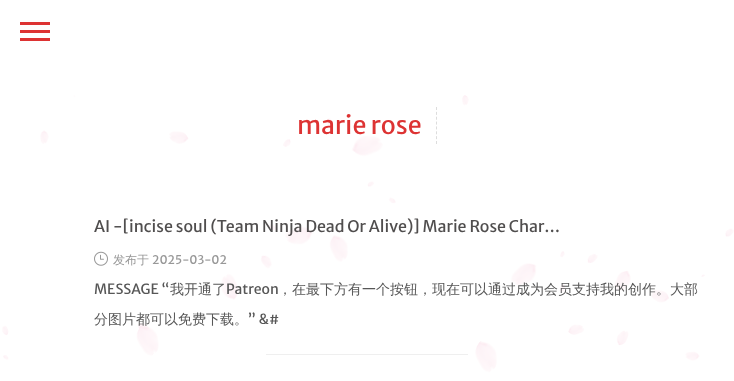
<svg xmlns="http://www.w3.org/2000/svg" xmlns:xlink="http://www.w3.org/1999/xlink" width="734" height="381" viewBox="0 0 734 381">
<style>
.cls-1{font:25px Merriweather Sans;fill:#dd3333}
.cls-2{font:16px Merriweather Sans;fill:#504e4e}
.cls-3{font:500 12px WenQuanYi Zen Hei;fill:#989898}
.cls-4{font:12px Merriweather Sans;fill:#989898}
.cls-5{font:14px Merriweather Sans;fill:#575757}
.cls-6{font:500 14px WenQuanYi Zen Hei;fill:#575757}
</style>
<rect width="100%" height="100%" fill="#ffffff"/>
<image xlink:href="image0.png" x="2" y="94" width="732" height="279"/>
<rect fill="#dd3333" x="20" y="30" width="30" height="3"/>
<rect fill="#dd3333" x="20" y="22" width="30" height="3"/>
<rect fill="#dd3333" x="20" y="38" width="30" height="3"/>
<path fill="none" stroke="#dddddd" stroke-dasharray="3 1.86" d="M436.5 107V144"/>
<image xlink:href="image1.png" x="94" y="251" width="14" height="15"/>
<rect fill="#efefef" x="266" y="354" width="202" height="1"/>
<text class="cls-1" x="297" y="134">marie rose</text>
<text class="cls-2" x="94" y="232">AI -[incise soul (Team Ninja Dead Or Alive)] Marie Rose Char…</text>
<text class="cls-3" x="113" y="264">发布于</text>
<text class="cls-4" x="152" y="264">2025-03-02</text>
<text class="cls-5" x="94" y="294">MESSAGE “</text>
<text class="cls-6" x="170" y="294">我开通了</text>
<text class="cls-5" x="226" y="294">Patreon</text>
<text class="cls-6" x="278" y="294">，在最下方有一个按钮，现在可以通过成为会员支持我的创作。大部</text>
<text class="cls-6" x="94" y="324">分图片都可以免费下载。</text>
<text class="cls-5" x="248" y="324">” &amp;#</text>
</svg>
